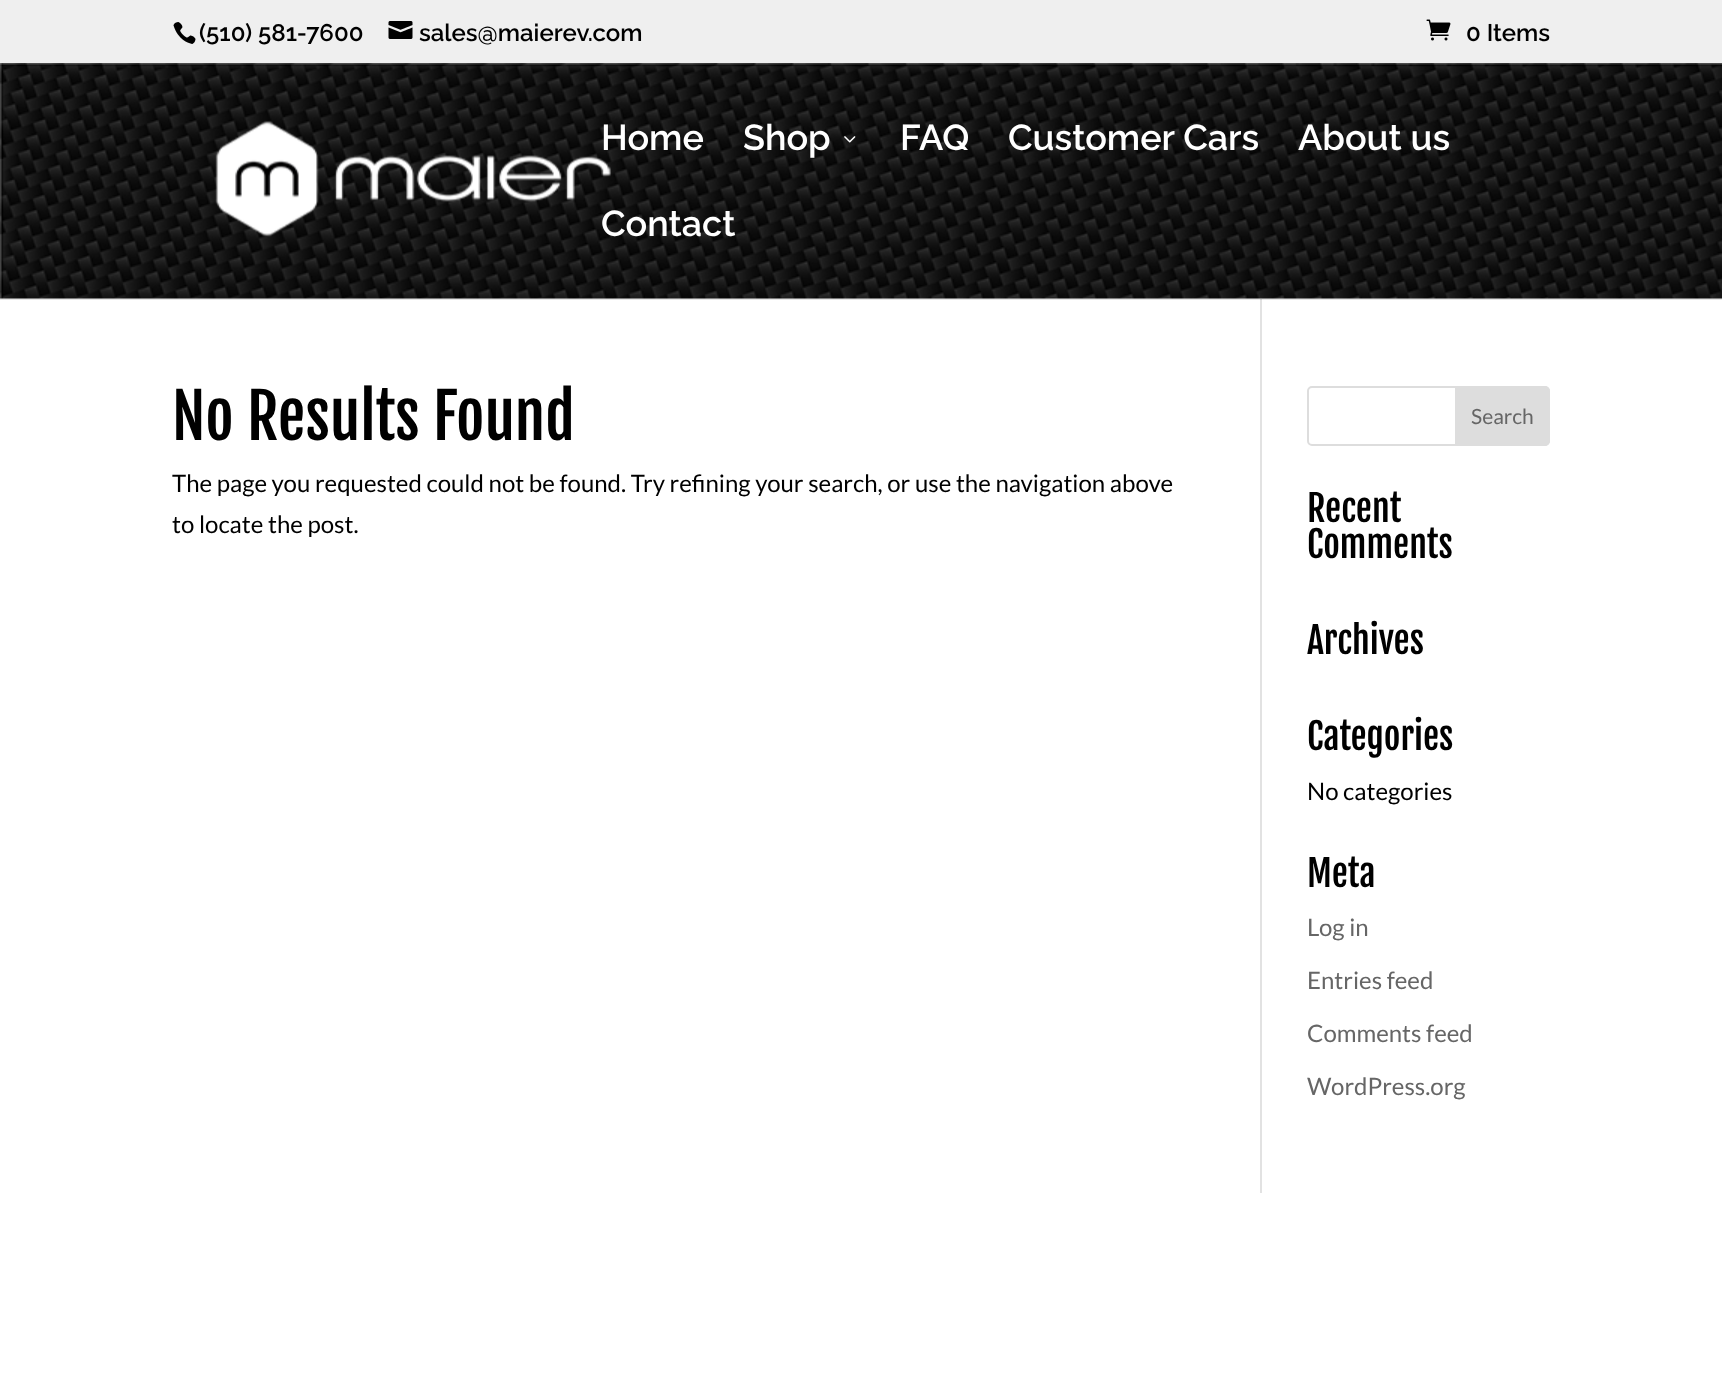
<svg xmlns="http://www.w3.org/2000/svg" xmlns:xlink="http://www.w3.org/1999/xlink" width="1722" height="1391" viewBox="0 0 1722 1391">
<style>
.cls-1{font:600 24px Raleway;fill:#000000}
.cls-2{font:600 36px Raleway;fill:#ffffff}
.cls-3{font:61.5px Fjalla One;fill:#000000}
.cls-4{font:24px Lato;fill:#000000}
.cls-5{font:21px Lato;fill:#666666}
.cls-6{font:36px Fjalla One;fill:#000000}
.cls-7{font:24px Lato;fill:#666666}
</style>
<rect width="100%" height="100%" fill="#ffffff"/>
<rect fill="#e6e6e6" x="0" y="298" width="1722" height="2"/>
<rect fill="#efefef" x="0" y="0" width="1722" height="63"/>
<image xlink:href="image0.png" x="173" y="22" width="23" height="22"/>
<image xlink:href="image1.png" x="388" y="21" width="25" height="18"/>
<image xlink:href="image2.png" x="1426" y="19" width="25" height="22"/>
<image xlink:href="image3.png" x="0" y="63" width="1722" height="236"/>
<image xlink:href="image4.png" x="215" y="120" width="396" height="117"/>
<image xlink:href="image5.png" x="844" y="136" width="12" height="7"/>
<rect fill="#e2e2e2" x="1260" y="299" width="2" height="894"/>
<rect fill="#cbcbcb" x="1260" y="299" width="2" height="1"/>
<rect fill="none" stroke="#dddddd" stroke-width="2" x="1308" y="387" width="241" height="58" rx="4"/>
<path fill="#dddddd" stroke="#dddddd" stroke-width="2" d="M1456 387H1545C1547 387 1549 389 1549 391V441C1549 443 1547 445 1545 445H1456Z"/>
<text class="cls-1" x="199" y="41">(510) 581-7600</text>
<text class="cls-1" x="419" y="41">sales@maierev.com</text>
<text class="cls-1" x="1466" y="41">0 Items</text>
<text class="cls-2" x="601" y="150">Home</text>
<text class="cls-2" x="743" y="150">Shop</text>
<text class="cls-2" x="900" y="150">FAQ</text>
<text class="cls-2" x="1008" y="150">Customer Cars</text>
<text class="cls-2" x="1298" y="150">About us</text>
<text class="cls-2" x="601" y="236">Contact</text>
<text class="cls-3" x="172" y="440">No Results Found</text>
<text class="cls-4"><tspan x="172" y="492">The page you requested could not be found. Try refining your search, or use the navigation above</tspan><tspan x="172" y="533">to locate the post.</tspan></text>
<text class="cls-5" x="1471" y="424">Search</text>
<text class="cls-6"><tspan x="1307" y="522">Recent</tspan><tspan x="1307" y="558">Comments</tspan></text>
<text class="cls-6" x="1307" y="654">Archives</text>
<text class="cls-6" x="1307" y="750">Categories</text>
<text class="cls-4" x="1307" y="800">No categories</text>
<text class="cls-6" x="1307" y="887">Meta</text>
<text class="cls-7" x="1307" y="936">Log in</text>
<text class="cls-7" x="1307" y="989">Entries feed</text>
<text class="cls-7" x="1307" y="1042">Comments feed</text>
<text class="cls-7" x="1307" y="1095">WordPress.org</text>
</svg>
